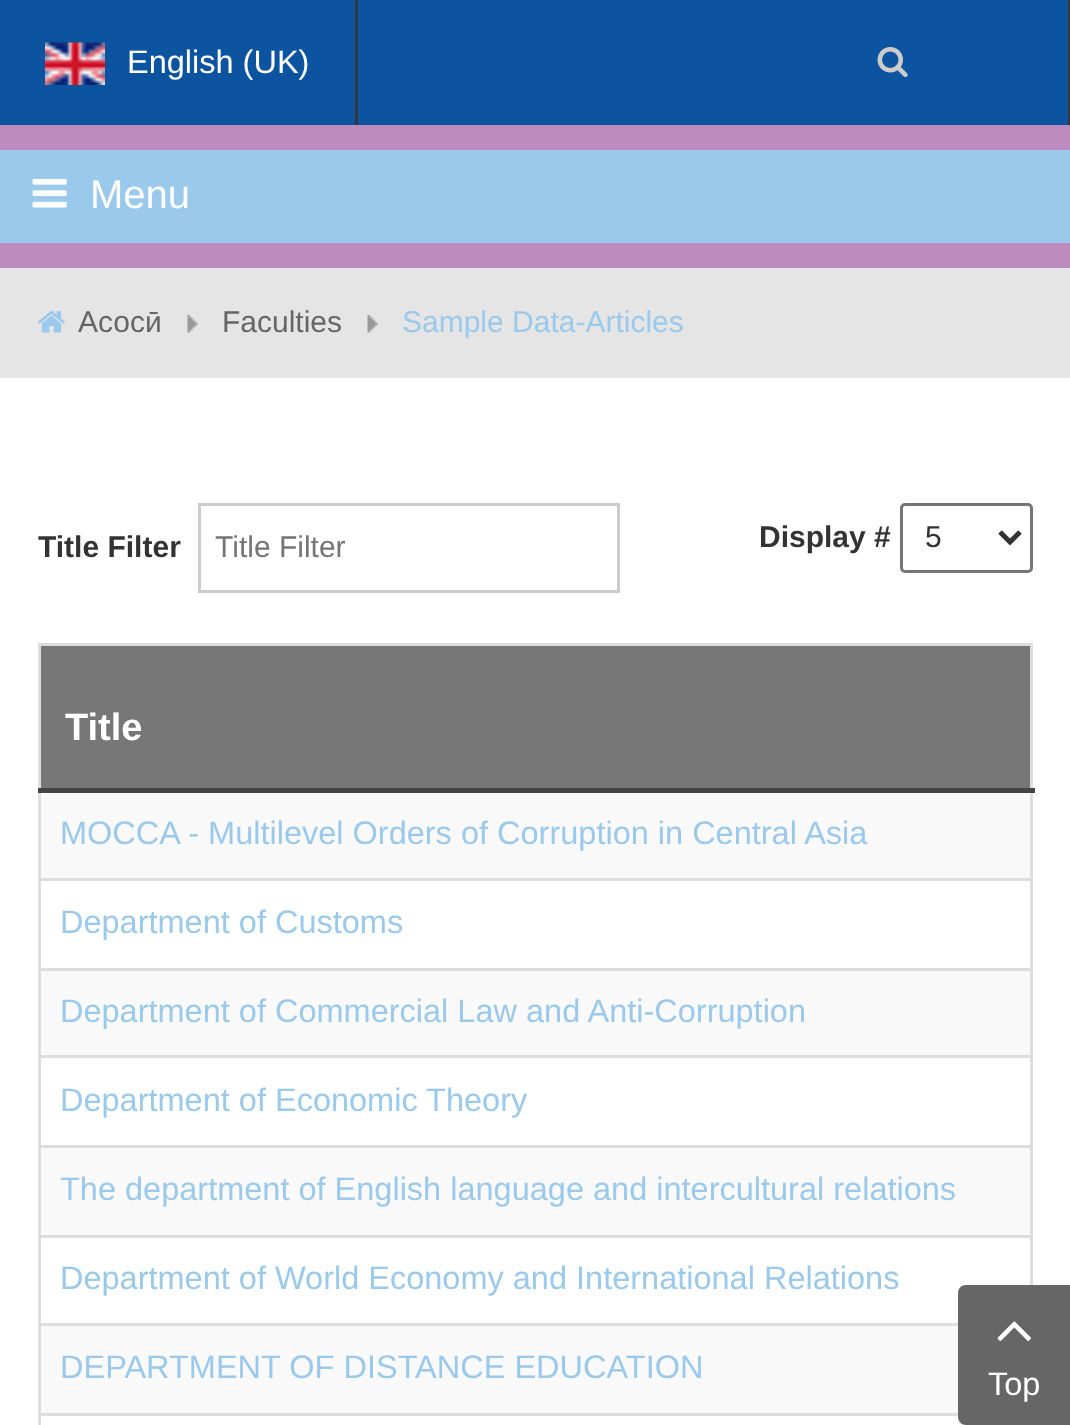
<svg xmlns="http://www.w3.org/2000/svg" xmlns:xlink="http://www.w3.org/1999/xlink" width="1070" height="1425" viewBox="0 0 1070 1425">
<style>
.cls-1{font:32.5px Liberation Sans;fill:#ffffff}
.cls-2{font:40px Liberation Sans;fill:#ffffff}
.cls-3{font:30px Liberation Sans;fill:#666666}
.cls-4{font:30px Liberation Sans;fill:#9ac9ec}
.cls-5{font:bold 30px Liberation Sans;fill:#333333}
.cls-6{font:30px Liberation Sans;fill:#757575}
.cls-7{font:30px Liberation Sans;fill:#333333}
.cls-8{font:bold 38px Liberation Sans;fill:#ffffff}
.cls-9{font:32.5px Liberation Sans;fill:#9ac9ec}
</style>
<rect width="100%" height="100%" fill="#ffffff"/>
<rect fill="#0c54a0" x="0" y="0" width="1068" height="125"/>
<rect fill="#32363e" x="355" y="0" width="3" height="125"/>
<image xlink:href="image0.png" x="45" y="42" width="60" height="43"/>
<rect fill="#32363e" x="1068" y="0" width="2" height="125"/>
<image xlink:href="image1.png" x="877" y="47" width="31" height="31"/>
<rect fill="#bd8cbf" x="0" y="125" width="1070" height="143"/>
<rect fill="#9ac9ec" x="0" y="150" width="1070" height="93"/>
<image xlink:href="image2.png" x="32" y="178" width="35" height="30"/>
<rect fill="#e5e5e5" x="0" y="268" width="1070" height="110"/>
<image xlink:href="image3.png" x="38" y="311" width="27" height="22"/>
<image xlink:href="image4.png" x="187" y="315" width="11" height="18"/>
<image xlink:href="image5.png" x="367" y="315" width="11" height="18"/>
<rect fill="none" stroke="#cccccc" stroke-width="3" x="199.5" y="504.5" width="419" height="87"/>
<rect fill="none" stroke="#767676" stroke-width="3" x="901.5" y="504.5" width="130" height="67" rx="3.5"/>
<path fill="none" stroke="#333333" stroke-width="5" d="M1000 532L1010 542L1020 532"/>
<rect fill="#dddddd" x="38" y="643" width="995" height="3"/>
<rect fill="#dddddd" x="1030" y="643" width="3" height="642"/>
<rect fill="#dddddd" x="38" y="643" width="3" height="782"/>
<rect fill="#777777" x="41" y="646" width="989" height="142"/>
<rect fill="#444444" x="38" y="788" width="997" height="5"/>
<rect fill="#f9f9f9" x="41" y="793" width="989" height="85"/>
<rect fill="#dddddd" x="38" y="878" width="995" height="3"/>
<rect fill="#f9f9f9" x="41" y="971" width="989" height="84"/>
<rect fill="#dddddd" x="38" y="968" width="995" height="3"/>
<rect fill="#dddddd" x="38" y="1055" width="995" height="3"/>
<rect fill="#f9f9f9" x="41" y="1148" width="989" height="87"/>
<rect fill="#dddddd" x="38" y="1145" width="995" height="3"/>
<rect fill="#dddddd" x="38" y="1235" width="995" height="3"/>
<rect fill="#f9f9f9" x="41" y="1326" width="917" height="87"/>
<rect fill="#dddddd" x="38" y="1323" width="920" height="3"/>
<rect fill="#dddddd" x="38" y="1413" width="920" height="3"/>
<path fill="#666666" d="M966 1285H1070V1425H966C961.5 1425 958 1421.5 958 1417V1293C958 1288.5 961.5 1285 966 1285Z"/>
<image xlink:href="image6.png" x="997" y="1321" width="34" height="20"/>
<text class="cls-1" x="127" y="73">English (UK)</text>
<text class="cls-2" x="90" y="208">Menu</text>
<text class="cls-3" x="78" y="332">Асосӣ</text>
<text class="cls-3" x="222" y="332">Faculties</text>
<text class="cls-4" x="402" y="332">Sample Data-Articles</text>
<text class="cls-5" x="38" y="557">Title Filter</text>
<text class="cls-6" x="215" y="557">Title Filter</text>
<text class="cls-5" x="759" y="547">Display #</text>
<text class="cls-7" x="925" y="547">5</text>
<text class="cls-8" x="65" y="740">Title</text>
<text class="cls-9" x="60" y="844">MOCCA - Multilevel Orders of Corruption in Central Asia</text>
<text class="cls-9" x="60" y="933">Department of Customs</text>
<text class="cls-9" x="60" y="1022">Department of Commercial Law and Anti-Corruption</text>
<text class="cls-9" x="60" y="1111">Department of Economic Theory</text>
<text class="cls-9" x="60" y="1200">The department of English language and intercultural relations</text>
<text class="cls-9" x="60" y="1289">Department of World Economy and International Relations</text>
<text class="cls-9" x="60" y="1378">DEPARTMENT OF DISTANCE EDUCATION</text>
<text class="cls-1" x="988" y="1395">Top</text>
</svg>
